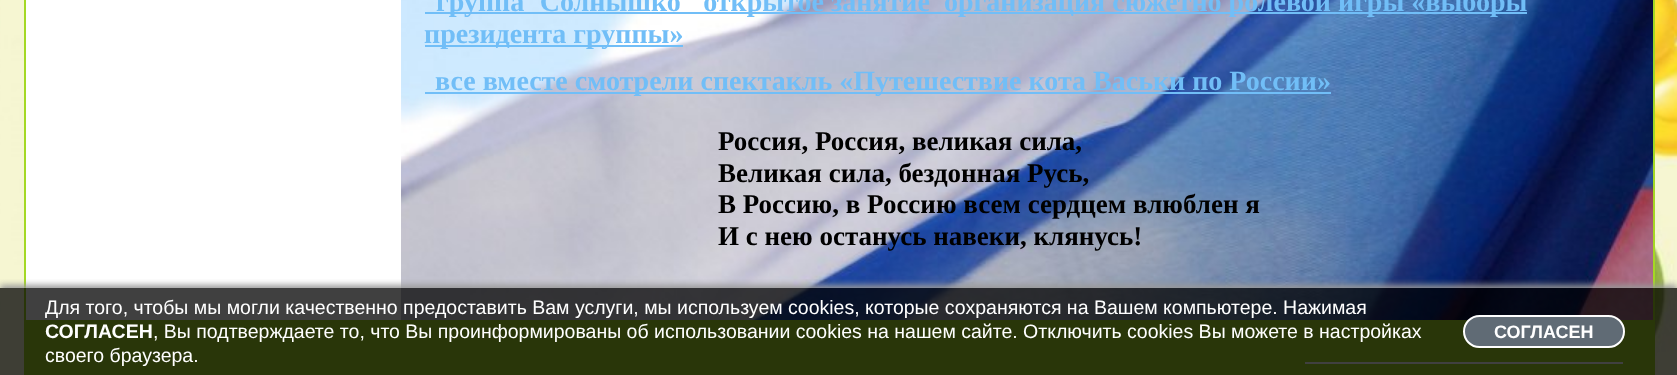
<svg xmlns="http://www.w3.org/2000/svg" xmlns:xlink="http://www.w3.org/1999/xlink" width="1677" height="375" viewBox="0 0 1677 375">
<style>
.cls-1{font:bold 28px Liberation Serif;fill:#71bef7}
.cls-2{font:bold 27px Liberation Serif;fill:#000000}
.cls-3{font:19.5px Liberation Sans;fill:#ffffff}
.cls-4{font:bold 19.5px Liberation Sans;fill:#ffffff}
.cls-5{font:bold 18px Liberation Sans;fill:#ffffff}
</style>
<defs>
<clipPath id="clip1"><rect x="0" y="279" width="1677" height="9"/></clipPath>
</defs>
<rect width="100%" height="100%" fill="#ffffff"/>
<image xlink:href="image0.png" x="0" y="0" width="1677" height="375"/>
<image xlink:href="image1.png" x="401" y="0" width="1252" height="320"/>
<rect fill="#a4d824" x="1653" y="0" width="2" height="375"/>
<rect fill="#a4d824" x="24" y="374" width="1631" height="1"/>
<rect fill="#a4d824" x="24" y="0" width="2" height="375"/>
<rect fill="#ffffff" x="26" y="0" width="375" height="320"/>
<rect fill="#71bef7" x="425" y="12" width="1102" height="2"/>
<rect fill="#71bef7" x="425" y="45" width="258" height="2"/>
<rect fill="#71bef7" x="425" y="92" width="906" height="2"/>
<rect fill="#a4d824" x="26" y="320" width="1627" height="54"/>
<rect fill="#ffffff" x="1305" y="362" width="318" height="2"/>
<g clip-path="url(#clip1)">
<rect fill="#999999" filter="blur(3px)" x="0" y="285" width="1677" height="87"/>
</g>
<rect fill="#000000" fill-opacity="0.75" x="0" y="288" width="1677" height="87"/>
<rect fill="#606b75" stroke="#ffffff" stroke-width="2" x="1464" y="316" width="160" height="31" rx="15.5"/>
<text class="cls-1" x="436" y="11">группа"Солнышко" открытое занятие</text>
<text class="cls-1" x="944" y="11">организация сюжетно ролевой игры «выборы</text>
<text class="cls-1" x="424" y="43">президента группы»</text>
<text class="cls-1" x="435" y="90">все вместе смотрели спектакль «Путешествие кота Васьки по России»</text>
<text class="cls-2"><tspan x="718" y="150">Россия, Россия, великая сила,</tspan><tspan x="718" y="182">Великая сила, бездонная Русь,</tspan><tspan x="718" y="213">В Россию, в Россию всем сердцем влюблен я</tspan><tspan x="718" y="245">И с нею останусь навеки, клянусь!</tspan></text>
<text class="cls-3" x="45" y="314">Для того, чтобы мы могли качественно предоставить Вам услуги, мы используем cookies, которые сохраняются на Вашем компьютере. Нажимая</text>
<text class="cls-4" x="45" y="338">СОГЛАСЕН</text>
<text class="cls-3" x="153" y="338">, Вы подтверждаете то, что Вы проинформированы об использовании cookies на нашем сайте. Отключить cookies Вы можете в настройках</text>
<text class="cls-3" x="45" y="362">своего браузера.</text>
<text class="cls-5" x="1494" y="338">СОГЛАСЕН</text>
</svg>
